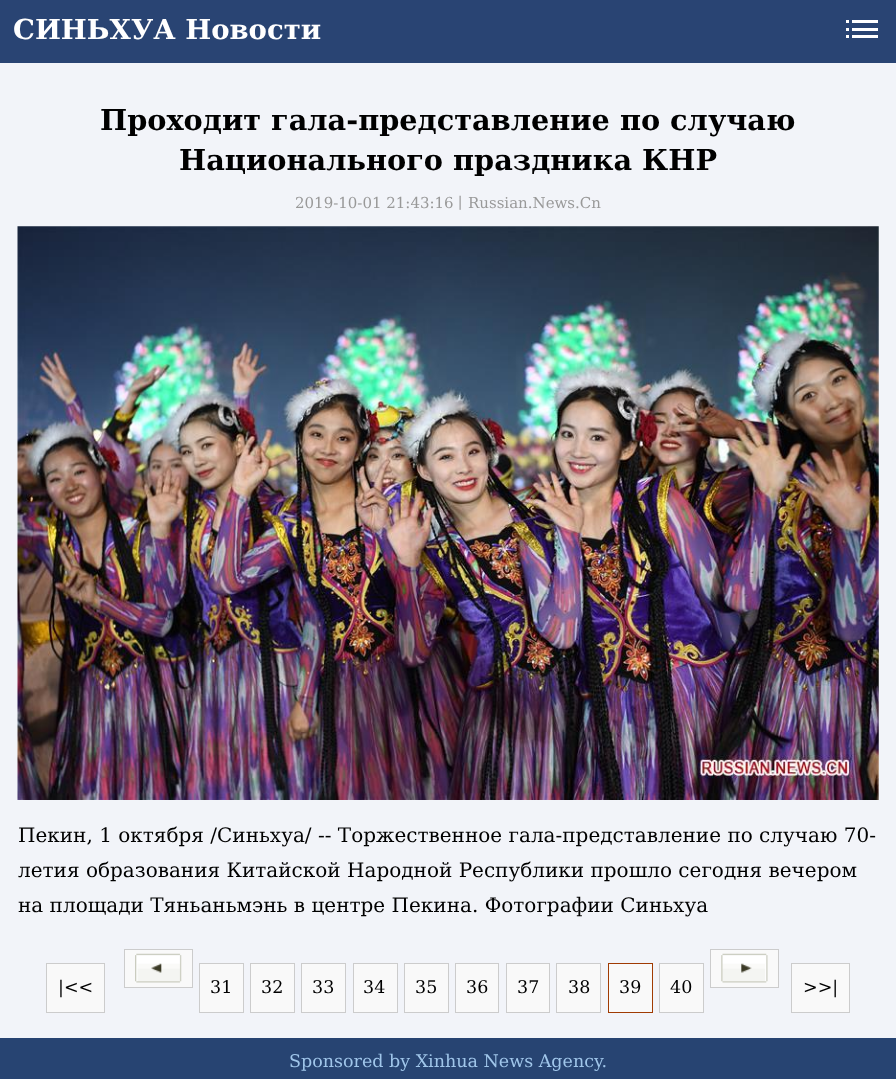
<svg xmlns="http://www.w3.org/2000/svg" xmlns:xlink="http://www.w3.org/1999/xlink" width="896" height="1079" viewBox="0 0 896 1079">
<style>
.cls-1{font:bold 27.5px DejaVu Serif;fill:#ffffff}
.cls-2{font:bold 28.75px DejaVu Serif;fill:#000000}
.cls-3{font:15px DejaVu Serif;fill:#999999}
.cls-4{font:500 15px WenQuanYi Zen Hei;fill:#999999}
.cls-5{font:20px DejaVu Serif;fill:#000000}
.cls-6{font:17.5px DejaVu Serif;fill:#000000}
.cls-7{font:17.5px DejaVu Serif;fill:#a0c6ea}
</style>
<rect width="100%" height="100%" fill="#f2f4f9"/>
<rect fill="#294473" x="0" y="0" width="896" height="63"/>
<rect fill="#ffffff" x="846" y="28" width="32" height="3"/>
<rect fill="#ffffff" x="846" y="20" width="32" height="3"/>
<rect fill="#ffffff" x="846" y="35" width="32" height="3"/>
<rect fill="#294473" x="849" y="20" width="3" height="18"/>
<image xlink:href="image0.png" x="17" y="226" width="862" height="574"/>
<rect fill="#f9f9f9" stroke="#cccccc" x="46.5" y="963.5" width="58" height="49"/>
<rect fill="#f9f9f9" stroke="#cccccc" x="124.5" y="949.5" width="68" height="38"/>
<image xlink:href="image1.png" x="135" y="953" width="47" height="30"/>
<rect fill="#f9f9f9" stroke="#cccccc" x="199.5" y="963.5" width="44" height="49"/>
<rect fill="#f9f9f9" stroke="#cccccc" x="250.5" y="963.5" width="44" height="49"/>
<rect fill="#f9f9f9" stroke="#cccccc" x="301.5" y="963.5" width="44" height="49"/>
<rect fill="#f9f9f9" stroke="#cccccc" x="353.5" y="963.5" width="44" height="49"/>
<rect fill="#f9f9f9" stroke="#cccccc" x="404.5" y="963.5" width="44" height="49"/>
<rect fill="#f9f9f9" stroke="#cccccc" x="455.5" y="963.5" width="43" height="49"/>
<rect fill="#f9f9f9" stroke="#cccccc" x="506.5" y="963.5" width="43" height="49"/>
<rect fill="#f9f9f9" stroke="#cccccc" x="556.5" y="963.5" width="44" height="49"/>
<rect fill="#f9f9f9" stroke="#a03b03" x="608.5" y="963.5" width="44" height="49"/>
<rect fill="#f9f9f9" stroke="#cccccc" x="659.5" y="963.5" width="44" height="49"/>
<rect fill="#f9f9f9" stroke="#cccccc" x="710.5" y="949.5" width="68" height="38"/>
<image xlink:href="image2.png" x="721" y="953" width="47" height="30"/>
<rect fill="#f9f9f9" stroke="#cccccc" x="791.5" y="963.5" width="58" height="49"/>
<rect fill="#274472" x="0" y="1038" width="896" height="41"/>
<text class="cls-1" x="13" y="39">СИНЬХУА Новости</text>
<text class="cls-2" x="100" y="130">Проходит гала-представление по случаю</text>
<text class="cls-2" x="179" y="170">Национального праздника КНР</text>
<text class="cls-3" x="295" y="208">2019-10-01 21:43:16</text>
<text class="cls-4" x="453" y="208">丨</text>
<text class="cls-3" x="468" y="208">Russian.News.Cn</text>
<text class="cls-5"><tspan x="18" y="842">Пекин, 1 октября /Синьхуа/ -- Торжественное гала-представление по случаю 70-</tspan><tspan x="18" y="877">летия образования Китайской Народной Республики прошло сегодня вечером</tspan><tspan x="18" y="912">на площади Тяньаньмэнь в центре Пекина. Фотографии Синьхуа</tspan></text>
<text class="cls-6" x="58" y="993">|&lt;&lt;</text>
<text class="cls-6" x="210" y="993">31</text>
<text class="cls-6" x="261" y="993">32</text>
<text class="cls-6" x="312" y="993">33</text>
<text class="cls-6" x="363" y="993">34</text>
<text class="cls-6" x="415" y="993">35</text>
<text class="cls-6" x="466" y="993">36</text>
<text class="cls-6" x="517" y="993">37</text>
<text class="cls-6" x="568" y="993">38</text>
<text class="cls-6" x="619" y="993">39</text>
<text class="cls-6" x="670" y="993">40</text>
<text class="cls-6" x="803" y="993">&gt;&gt;|</text>
<text class="cls-7" x="289" y="1067">Sponsored by Xinhua News Agency.</text>
</svg>
